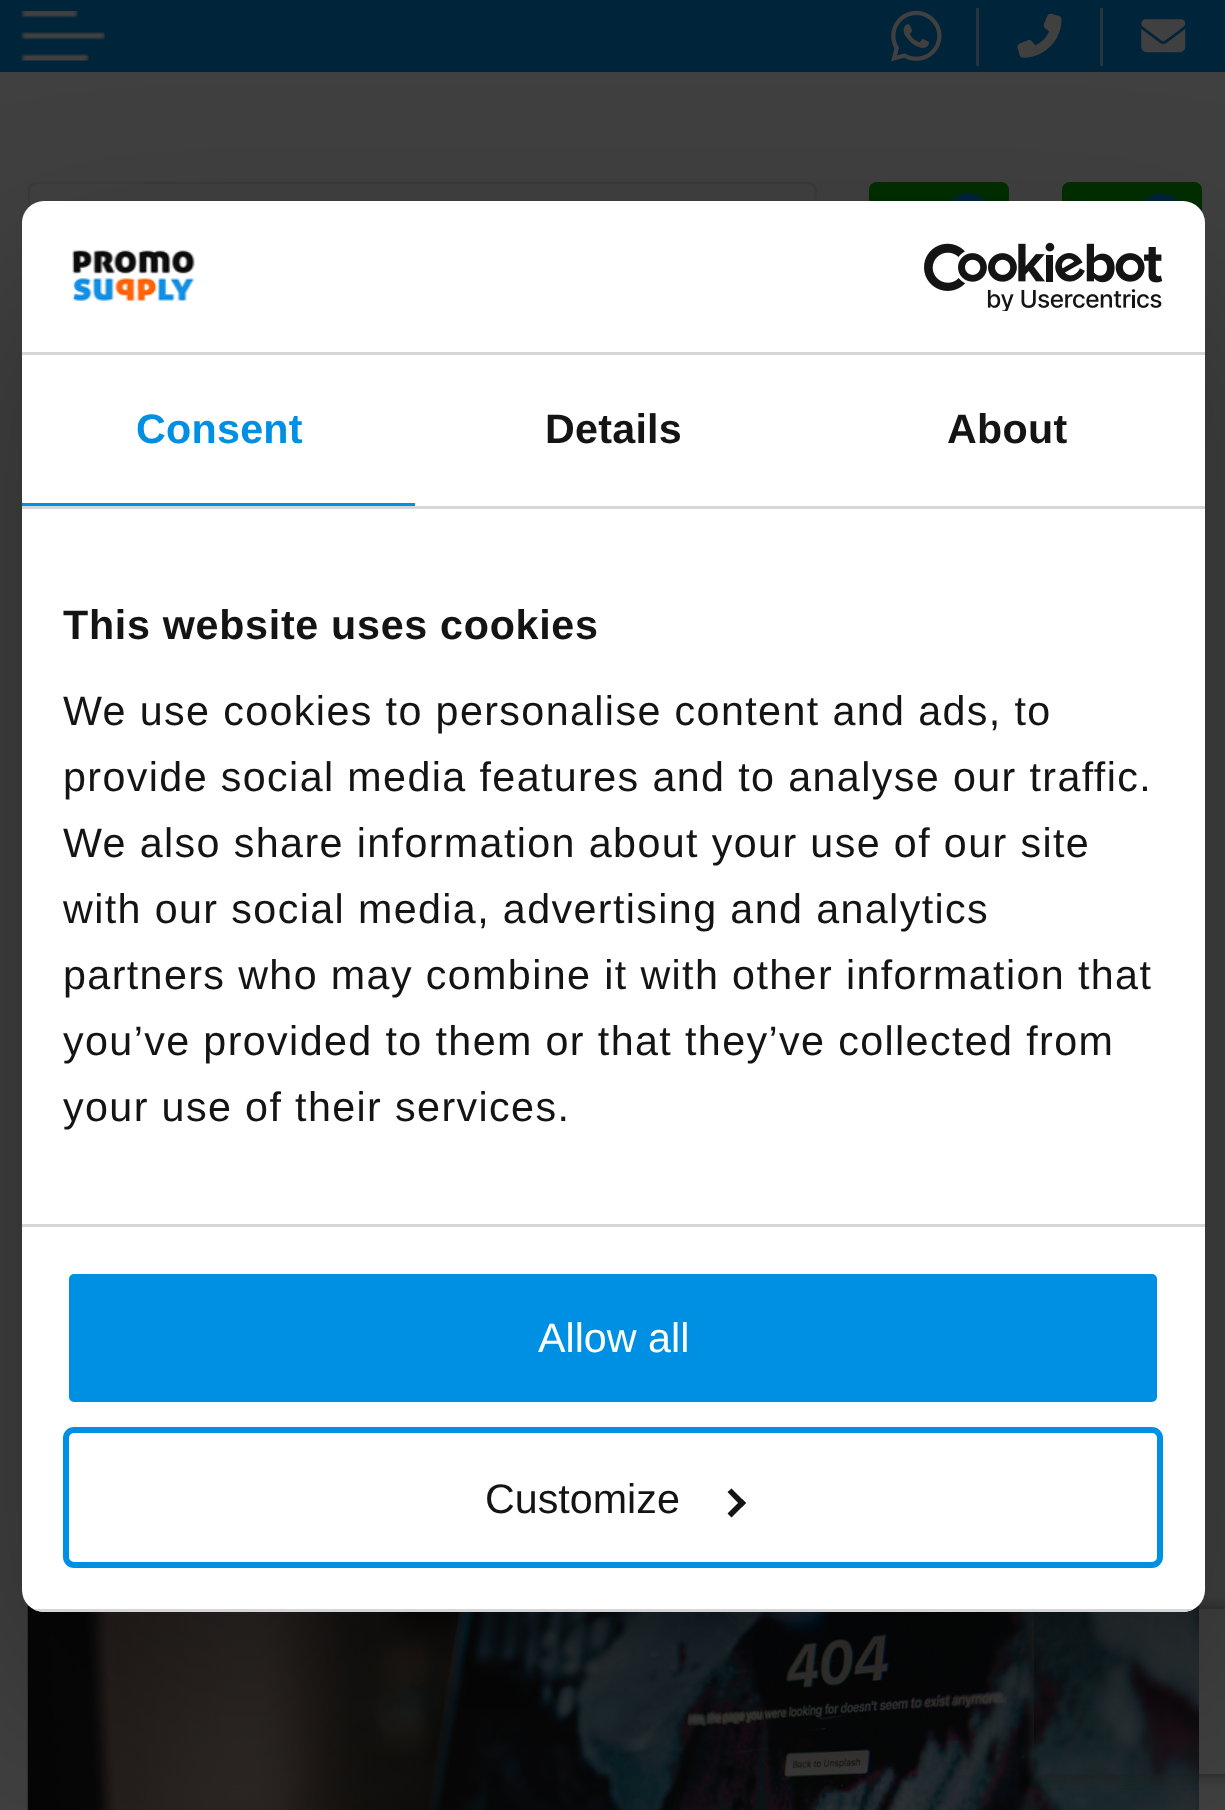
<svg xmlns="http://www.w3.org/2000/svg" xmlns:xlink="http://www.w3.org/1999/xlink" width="1225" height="1810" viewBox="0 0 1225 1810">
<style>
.cls-1{font:bold 41.25px Liberation Sans;letter-spacing:0.25px;fill:#0090e3}
.cls-2{font:bold 41.25px Liberation Sans;letter-spacing:0.25px;fill:#141414}
.cls-3{font:bold 41.25px Liberation Sans;letter-spacing:0.7px;fill:#141414}
.cls-4{font:41.25px Liberation Sans;letter-spacing:1.38px;fill:#141414}
.cls-5{font:41.25px Liberation Sans;fill:#ffffff}
.cls-6{font:41.25px Liberation Sans;fill:#141414}
</style>
<defs>
<clipPath id="clip1"><path d="M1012 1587H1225V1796H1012ZM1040 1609H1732C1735.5 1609 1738 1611.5 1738 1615V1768C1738 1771.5 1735.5 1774 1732 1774H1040C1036.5 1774 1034 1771.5 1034 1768V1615C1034 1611.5 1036.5 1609 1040 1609Z" clip-rule="evenodd"/></clipPath>
<clipPath id="clip2"><rect x="22" y="201" width="1183" height="1411" rx="22"/></clipPath>
</defs>
<rect width="100%" height="100%" fill="#404040"/>
<rect fill="#002439" x="0" y="0" width="1225" height="72"/>
<image xlink:href="image0.png" x="21" y="11" width="84" height="50"/>
<image xlink:href="image1.png" x="891" y="10" width="51" height="52"/>
<rect fill="#26353d" x="976" y="8" width="3" height="58"/>
<image xlink:href="image2.png" x="1017" y="13" width="45" height="45"/>
<rect fill="#26353d" x="1100" y="8" width="3" height="58"/>
<image xlink:href="image3.png" x="1141" y="19" width="45" height="34"/>
<path fill="#3b3b3b" fill-rule="evenodd" d="M36 182H641V322H36C31 322 28 318 28 314V190C28 185 31 182 36 182ZM36 184H641V319H36C33 319 30 317 30 314V190C30 187 33 184 36 184Z"/>
<path fill="#3b3b3b" fill-rule="evenodd" d="M638 182H808C813 182 817 185 817 190V314C817 318 813 322 808 322H638ZM638 184H808C812 184 814 187 814 190V314C814 317 812 319 808 319H638Z"/>
<rect fill="#002e00" x="869" y="182" width="140" height="140" rx="8"/>
<rect fill="#002439" x="946" y="193" width="44" height="49" rx="22"/>
<rect fill="#002e00" x="1062" y="182" width="140" height="140" rx="8"/>
<rect fill="#002439" x="1139" y="193" width="44" height="49" rx="22"/>
<image xlink:href="image4.png" x="27" y="1604" width="1172" height="206"/>
<rect fill="#000000" fill-opacity="0.3" filter="blur(93.5px)" x="22" y="289" width="1183" height="1411" rx="22"/>
<g clip-path="url(#clip1)">
<rect fill="#202020" filter="blur(7px)" x="1034" y="1609" width="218" height="165" rx="6"/>
</g>
<rect fill="#ffffff" x="22" y="201" width="1183" height="1411" rx="22"/>
<rect fill="#d6d6d6" x="22" y="352" width="1183" height="3"/>
<image xlink:href="image5.png" x="72" y="250" width="123" height="51"/>
<image xlink:href="image6.png" x="924" y="242" width="239" height="69"/>
<rect fill="#d6d6d6" x="22" y="506" width="1183" height="3"/>
<rect fill="#0090e3" x="22" y="503" width="393" height="3"/>
<rect fill="#d6d6d6" x="22" y="1224" width="1183" height="3"/>
<g clip-path="url(#clip2)">
<rect fill="#d6d6d6" x="33" y="1609" width="1161" height="3"/>
</g>
<rect fill="#0090e3" stroke="#ffffff" stroke-width="6" x="66" y="1271" width="1094" height="134" rx="8"/>
<rect fill="none" stroke="#0090e3" stroke-width="6" x="66" y="1430" width="1094" height="135" rx="8"/>
<path fill="#141414" d="M731.5 1488.5L746 1503L742 1507L727.5 1492Z"/>
<path fill="#141414" d="M742 1499L746 1503L731.5 1517.5L727.5 1513.5Z"/>
<text class="cls-1" x="136" y="443">Consent</text>
<text class="cls-2" x="545" y="443">Details</text>
<text class="cls-2" x="947" y="443">About</text>
<text class="cls-3" x="63" y="639">This website uses cookies</text>
<text class="cls-4"><tspan x="63" y="725">We use cookies to personalise content and ads, to</tspan><tspan x="63" y="791">provide social media features and to analyse our traffic.</tspan><tspan x="63" y="857">We also share information about your use of our site</tspan><tspan x="63" y="923">with our social media, advertising and analytics</tspan><tspan x="63" y="989">partners who may combine it with other information that</tspan><tspan x="63" y="1055">you’ve provided to them or that they’ve collected from</tspan><tspan x="63" y="1121">your use of their services.</tspan></text>
<text class="cls-5" x="538" y="1352">Allow all</text>
<text class="cls-6" x="485" y="1513">Customize</text>
</svg>
